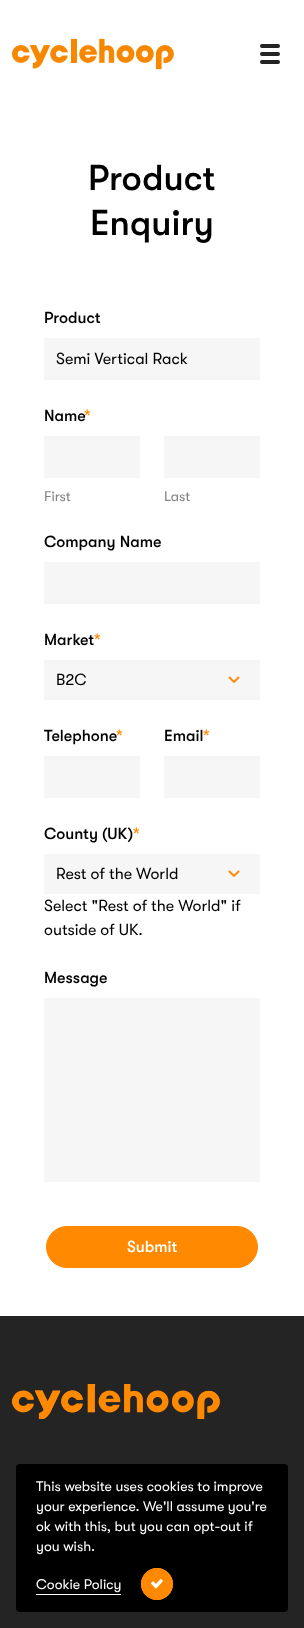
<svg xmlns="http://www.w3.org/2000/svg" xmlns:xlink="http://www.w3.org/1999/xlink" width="304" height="1628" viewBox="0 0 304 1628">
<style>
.cls-1{font:500 36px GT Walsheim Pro;fill:#000000}
.cls-2{font:500 16px GT Walsheim Pro;fill:#000000}
.cls-3{font:16px GT Walsheim Pro;fill:#000000}
.cls-4{font:500 16px GT Walsheim Pro;fill:#ff8900}
.cls-5{font:14px GT Walsheim Pro;fill:#828283}
.cls-6{font:500 16px GT Walsheim Pro;fill:#ffffff}
.cls-7{font:14px GT Walsheim Pro;fill:#ffffff}
</style>
<rect width="100%" height="100%" fill="#ffffff"/>
<image xlink:href="image0.png" x="12" y="38" width="162" height="32"/>
<rect fill="#242425" x="260" y="44" width="20" height="4" rx="2"/>
<rect fill="#242425" x="260" y="52" width="20" height="4" rx="2"/>
<rect fill="#242425" x="260" y="60" width="20" height="4" rx="2"/>
<rect fill="#f6f6f6" x="44" y="338" width="216" height="42"/>
<rect fill="#f6f6f6" x="44" y="436" width="96" height="42"/>
<rect fill="#f6f6f6" x="164" y="436" width="96" height="42"/>
<rect fill="#f6f6f6" x="44" y="562" width="216" height="42"/>
<rect fill="#f6f6f6" x="44" y="660" width="216" height="40"/>
<path fill="none" stroke="#ff8900" stroke-width="1.9" d="M229 677L234 682L239 677"/>
<rect fill="#f6f6f6" x="44" y="756" width="96" height="42"/>
<rect fill="#f6f6f6" x="164" y="756" width="96" height="42"/>
<rect fill="#f6f6f6" x="44" y="854" width="216" height="40"/>
<path fill="none" stroke="#ff8900" stroke-width="1.9" d="M229 871L234 876L239 871"/>
<rect fill="#f6f6f6" x="44" y="998" width="216" height="184"/>
<rect fill="#ff8900" stroke="#ff8900" x="46.5" y="1226.5" width="211" height="41" rx="20.5"/>
<rect fill="#242425" x="0" y="1316" width="304" height="312"/>
<image xlink:href="image1.png" x="12" y="1384" width="208" height="35"/>
<rect fill="#000000" x="16" y="1464" width="272" height="148" rx="4"/>
<rect fill="#ffffff" x="36" y="1594" width="85" height="1"/>
<circle fill="#ff8900" cx="157" cy="1584" r="16"/>
<image xlink:href="image2.png" x="151" y="1579" width="12" height="10"/>
<circle fill="none" stroke="#ff8900" stroke-width="2" cx="157" cy="1584" r="15"/>
<text class="cls-1" x="88" y="190">Product</text>
<text class="cls-1" x="90" y="235">Enquiry</text>
<text class="cls-2" x="44" y="323">Product</text>
<text class="cls-3" x="56" y="364">Semi Vertical Rack</text>
<text class="cls-2" x="44" y="421">Name</text>
<text class="cls-4" x="84" y="421">*</text>
<text class="cls-5" x="44" y="501">First</text>
<text class="cls-5" x="164" y="501">Last</text>
<text class="cls-2" x="44" y="547">Company Name</text>
<text class="cls-2" x="44" y="645">Market</text>
<text class="cls-4" x="94" y="645">*</text>
<text class="cls-3" x="56" y="685">B2C</text>
<text class="cls-2" x="44" y="741">Telephone</text>
<text class="cls-4" x="116" y="741">*</text>
<text class="cls-2" x="164" y="741">Email</text>
<text class="cls-4" x="203" y="741">*</text>
<text class="cls-2" x="44" y="839">County (UK)</text>
<text class="cls-4" x="133" y="839">*</text>
<text class="cls-3" x="56" y="879">Rest of the World</text>
<text class="cls-3"><tspan x="44" y="911">Select "Rest of the World" if</tspan><tspan x="44" y="935">outside of UK.</tspan></text>
<text class="cls-2" x="44" y="983">Message</text>
<text class="cls-6" x="127" y="1252">Submit</text>
<text class="cls-7"><tspan x="36" y="1491">This website uses cookies to improve</tspan><tspan x="36" y="1511">your experience. We'll assume you're</tspan><tspan x="36" y="1531">ok with this, but you can opt-out if</tspan><tspan x="36" y="1551">you wish.</tspan></text>
<text class="cls-7" x="36" y="1589">Cookie Policy</text>
</svg>
